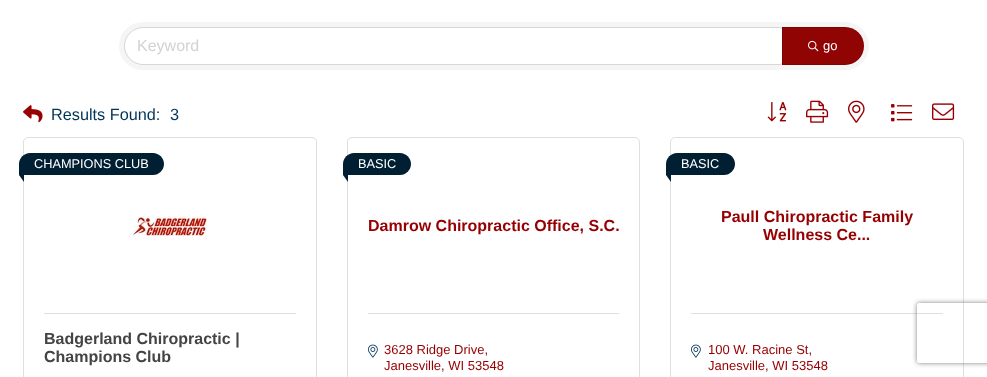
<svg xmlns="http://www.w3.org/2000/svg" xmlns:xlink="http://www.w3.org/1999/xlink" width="987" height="377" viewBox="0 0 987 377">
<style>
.cls-1{font:16px Liberation Sans;fill:#d2d2d2}
.cls-2{font:13px Liberation Sans;fill:#ffffff}
.cls-3{font:16.25px Liberation Sans;fill:#003458}
.cls-4{font:12.75px Liberation Sans;fill:#ffffff}
.cls-5{font:bold 16px Liberation Sans;fill:#444444}
.cls-6{font:bold 16px Liberation Sans;fill:#960002}
.cls-7{font:13px Liberation Sans;fill:#960002}
</style>
<defs>
<clipPath id="clip1"><path d="M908 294H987V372H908ZM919 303H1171C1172 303 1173 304 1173 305V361C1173 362 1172 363 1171 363H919C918 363 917 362 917 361V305C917 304 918 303 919 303Z" clip-rule="evenodd"/></clipPath>
</defs>
<rect width="100%" height="100%" fill="#ffffff"/>
<rect fill="#f5f5f5" x="119" y="22" width="750" height="48" rx="24"/>
<path fill="#ffffff" d="M143 28H780C781 28 782 29 782 30V62C782 63 781 64 780 64H143C133 64 125 56 125 46C125 36 133 28 143 28Z"/>
<path fill="none" stroke="#000000" stroke-opacity="0.12" d="M143 27.5H780C781.5 27.5 782.5 28.5 782.5 30V62C782.5 63.5 781.5 64.5 780 64.5H143C133 64.5 124.5 56 124.5 46C124.5 36 133 27.5 143 27.5Z"/>
<path fill="#900403" d="M782 27H845C855.5 27 864 35.5 864 46C864 56.5 855.5 65 845 65H782Z"/>
<path fill="none" stroke="#000000" stroke-opacity="0.12" d="M782.5 27.5H845C855 27.5 863.5 36 863.5 46C863.5 56 855 64.5 845 64.5H782.5Z"/>
<image xlink:href="image0.png" x="808" y="40" width="11" height="12"/>
<image xlink:href="image1.png" x="23" y="105" width="20" height="18"/>
<image xlink:href="image2.png" x="767" y="102" width="20" height="20"/>
<image xlink:href="image3.png" x="806" y="100" width="23" height="23"/>
<image xlink:href="image4.png" x="848" y="100" width="17" height="23"/>
<image xlink:href="image5.png" x="891" y="104" width="22" height="18"/>
<image xlink:href="image6.png" x="932" y="103" width="23" height="17"/>
<rect fill="none" stroke="#dfdfdf" x="23.5" y="137.5" width="293" height="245" rx="4.5"/>
<path fill="#001f33" d="M30 153H153C159 153 164 158 164 164C164 170 159 175 153 175H19.5C19 175 19 175 19 174.5V164C19 158 24 153 30 153Z"/>
<path fill="#001f33" d="M24 168V182L19 175Z"/>
<image xlink:href="image7.png" x="132" y="216" width="75" height="20"/>
<rect fill="#dfdfdf" x="44" y="313" width="252" height="1"/>
<rect fill="none" stroke="#dfdfdf" x="347.5" y="137.5" width="292" height="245" rx="4.5"/>
<path fill="#001f33" d="M354 153H400C406 153 411 158 411 164C411 170 406 175 400 175H343.5C343 175 343 175 343 174.5V164C343 158 348 153 354 153Z"/>
<path fill="#001f33" d="M348 168V182L343 175Z"/>
<rect fill="#dfdfdf" x="368" y="313" width="251" height="1"/>
<image xlink:href="image8.png" x="368" y="344" width="10" height="14"/>
<rect fill="none" stroke="#dfdfdf" x="670.5" y="137.5" width="293" height="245" rx="4.5"/>
<path fill="#001f33" d="M677 153H724C730 153 735 158 735 164C735 170 730 175 724 175H666.5C666 175 666 175 666 174.5V164C666 158 671 153 677 153Z"/>
<path fill="#001f33" d="M671 168V182L666 175Z"/>
<rect fill="#dfdfdf" x="691" y="313" width="252" height="1"/>
<image xlink:href="image8.png" x="691" y="344" width="10" height="14"/>
<g clip-path="url(#clip1)">
<rect fill="#808080" filter="blur(2.5px)" x="917" y="303" width="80" height="60" rx="2"/>
</g>
<text class="cls-1" x="137" y="51">Keyword</text>
<text class="cls-2" x="823" y="50">go</text>
<text class="cls-3" x="51" y="120">Results Found:</text>
<text class="cls-3" x="170" y="120">3</text>
<text class="cls-4" x="34" y="168">CHAMPIONS CLUB</text>
<text class="cls-5"><tspan x="44" y="344">Badgerland Chiropractic |</tspan><tspan x="44" y="362">Champions Club</tspan></text>
<text class="cls-4" x="358" y="168">BASIC</text>
<text class="cls-6" x="368" y="231">Damrow Chiropractic Office, S.C.</text>
<text class="cls-7"><tspan x="384" y="354">3628 Ridge Drive,</tspan><tspan x="384" y="370">Janesville, WI 53548</tspan></text>
<text class="cls-4" x="681" y="168">BASIC</text>
<text class="cls-6" x="721" y="222">Paull Chiropractic Family</text>
<text class="cls-6" x="763" y="240">Wellness Ce...</text>
<text class="cls-7"><tspan x="708" y="354">100 W. Racine St,</tspan><tspan x="708" y="370">Janesville, WI 53548</tspan></text>
</svg>
